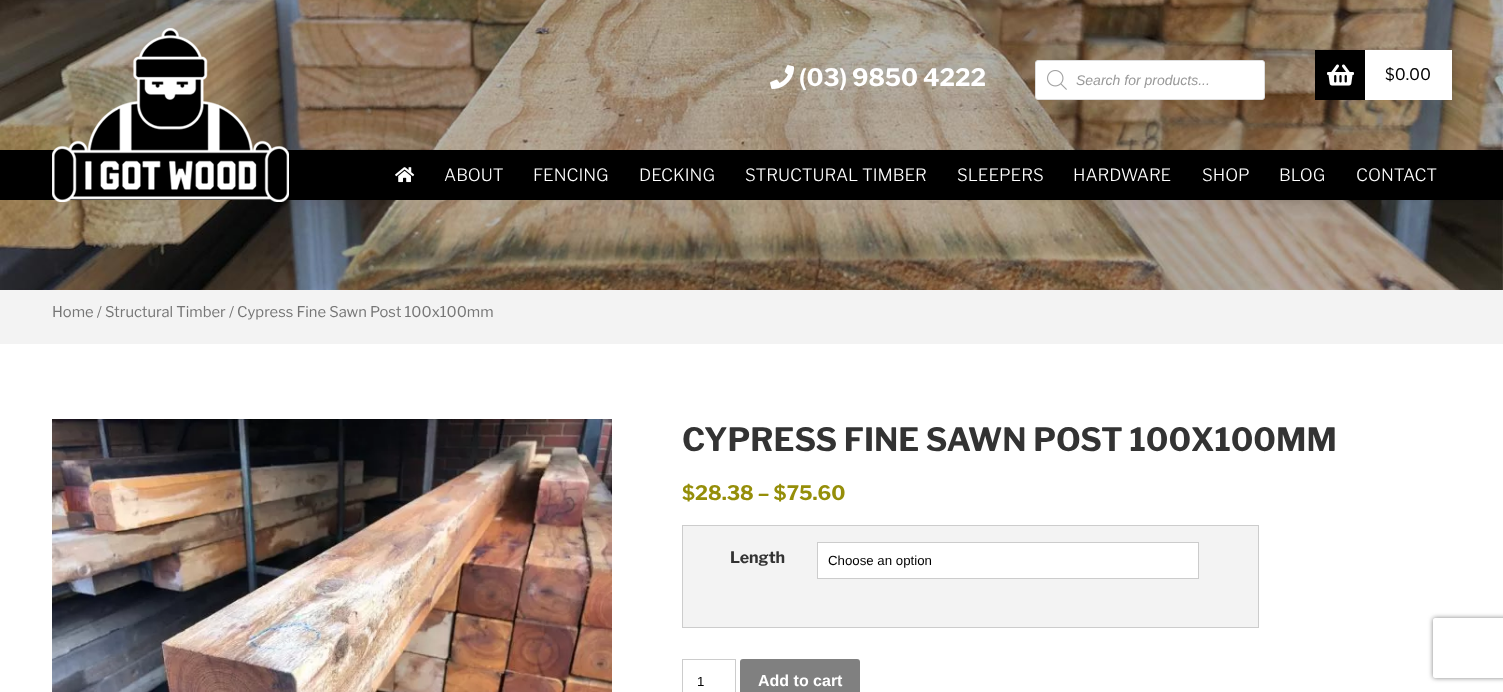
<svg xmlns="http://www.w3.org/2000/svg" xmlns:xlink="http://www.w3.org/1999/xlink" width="1503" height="692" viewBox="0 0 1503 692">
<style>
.cls-1{font:bold 24px Libre Franklin;fill:#ffffff}
.cls-2{font:italic 14px Liberation Sans;fill:#999999}
.cls-3{font:16px Libre Franklin;fill:#000000}
.cls-4{font:300 17px Libre Franklin;fill:#ffffff}
.cls-5{font:14.75px Libre Franklin;fill:#767676}
.cls-6{font:bold 32px Libre Franklin;fill:#333333}
.cls-7{font:bold 20px Libre Franklin;fill:#958e09}
.cls-8{font:bold 16px Libre Franklin;fill:#333333}
.cls-9{font:13.25px Liberation Sans;fill:#000000}
.cls-10{font:bold 16px Liberation Sans;fill:#ffffff}
</style>
<defs>
<clipPath id="clip1"><path d="M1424 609H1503V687H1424ZM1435 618H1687C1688 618 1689 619 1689 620V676C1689 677 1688 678 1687 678H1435C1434 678 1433 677 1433 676V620C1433 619 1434 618 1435 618Z" clip-rule="evenodd"/></clipPath>
</defs>
<rect width="100%" height="100%" fill="#ffffff"/>
<image xlink:href="image0.png" x="0" y="0" width="1503" height="290"/>
<rect fill="#000000" x="0" y="150" width="1503" height="50"/>
<image xlink:href="image1.png" x="52" y="28" width="237" height="174"/>
<image xlink:href="image2.png" x="770" y="65" width="24" height="24"/>
<rect fill="#ffffff" stroke="#dddddd" x="1035.5" y="60.5" width="229" height="39" rx="2.5"/>
<image xlink:href="image3.png" x="1047" y="70" width="20" height="20"/>
<rect fill="#000000" x="1315" y="50" width="50" height="50"/>
<image xlink:href="image4.png" x="1327" y="64" width="27" height="22"/>
<rect fill="#ffffff" x="1365" y="50" width="87" height="50"/>
<image xlink:href="image5.png" x="395" y="167" width="20" height="16"/>
<rect fill="#f3f3f3" x="0" y="290" width="1503" height="54"/>
<image xlink:href="image6.png" x="52" y="419" width="560" height="273"/>
<rect fill="#f3f3f3" stroke="#cccccc" x="682.5" y="525.5" width="576" height="102"/>
<rect fill="#ffffff" stroke="#cccccc" x="817.5" y="542.5" width="381" height="36"/>
<rect fill="none" stroke="#cccccc" x="682.5" y="659.5" width="53" height="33"/>
<rect fill="#808080" x="740" y="659" width="120" height="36" rx="3"/>
<g clip-path="url(#clip1)">
<rect fill="#808080" filter="blur(2.5px)" x="1433" y="618" width="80" height="60" rx="2"/>
</g>
<text class="cls-1" x="799" y="86">(03) 9850 4222</text>
<text class="cls-2" x="1076" y="85">Search for products...</text>
<text class="cls-3" x="1385" y="80">$0.00</text>
<text class="cls-4" x="444" y="181">ABOUT</text>
<text class="cls-4" x="533" y="181">FENCING</text>
<text class="cls-4" x="639" y="181">DECKING</text>
<text class="cls-4" x="745" y="181">STRUCTURAL TIMBER</text>
<text class="cls-4" x="957" y="181">SLEEPERS</text>
<text class="cls-4" x="1073" y="181">HARDWARE</text>
<text class="cls-4" x="1202" y="181">SHOP</text>
<text class="cls-4" x="1279" y="181">BLOG</text>
<text class="cls-4" x="1356" y="181">CONTACT</text>
<text class="cls-5" x="52" y="317">Home / Structural Timber / Cypress Fine Sawn Post 100x100mm</text>
<text class="cls-6" x="682" y="451">CYPRESS FINE SAWN POST 100X100MM</text>
<text class="cls-7" x="682" y="500">$28.38 – $75.60</text>
<text class="cls-8" x="730" y="563">Length</text>
<text class="cls-9" x="828" y="565">Choose an option</text>
<text class="cls-9" x="697" y="686">1</text>
<text class="cls-10" x="758" y="686">Add to cart</text>
</svg>
